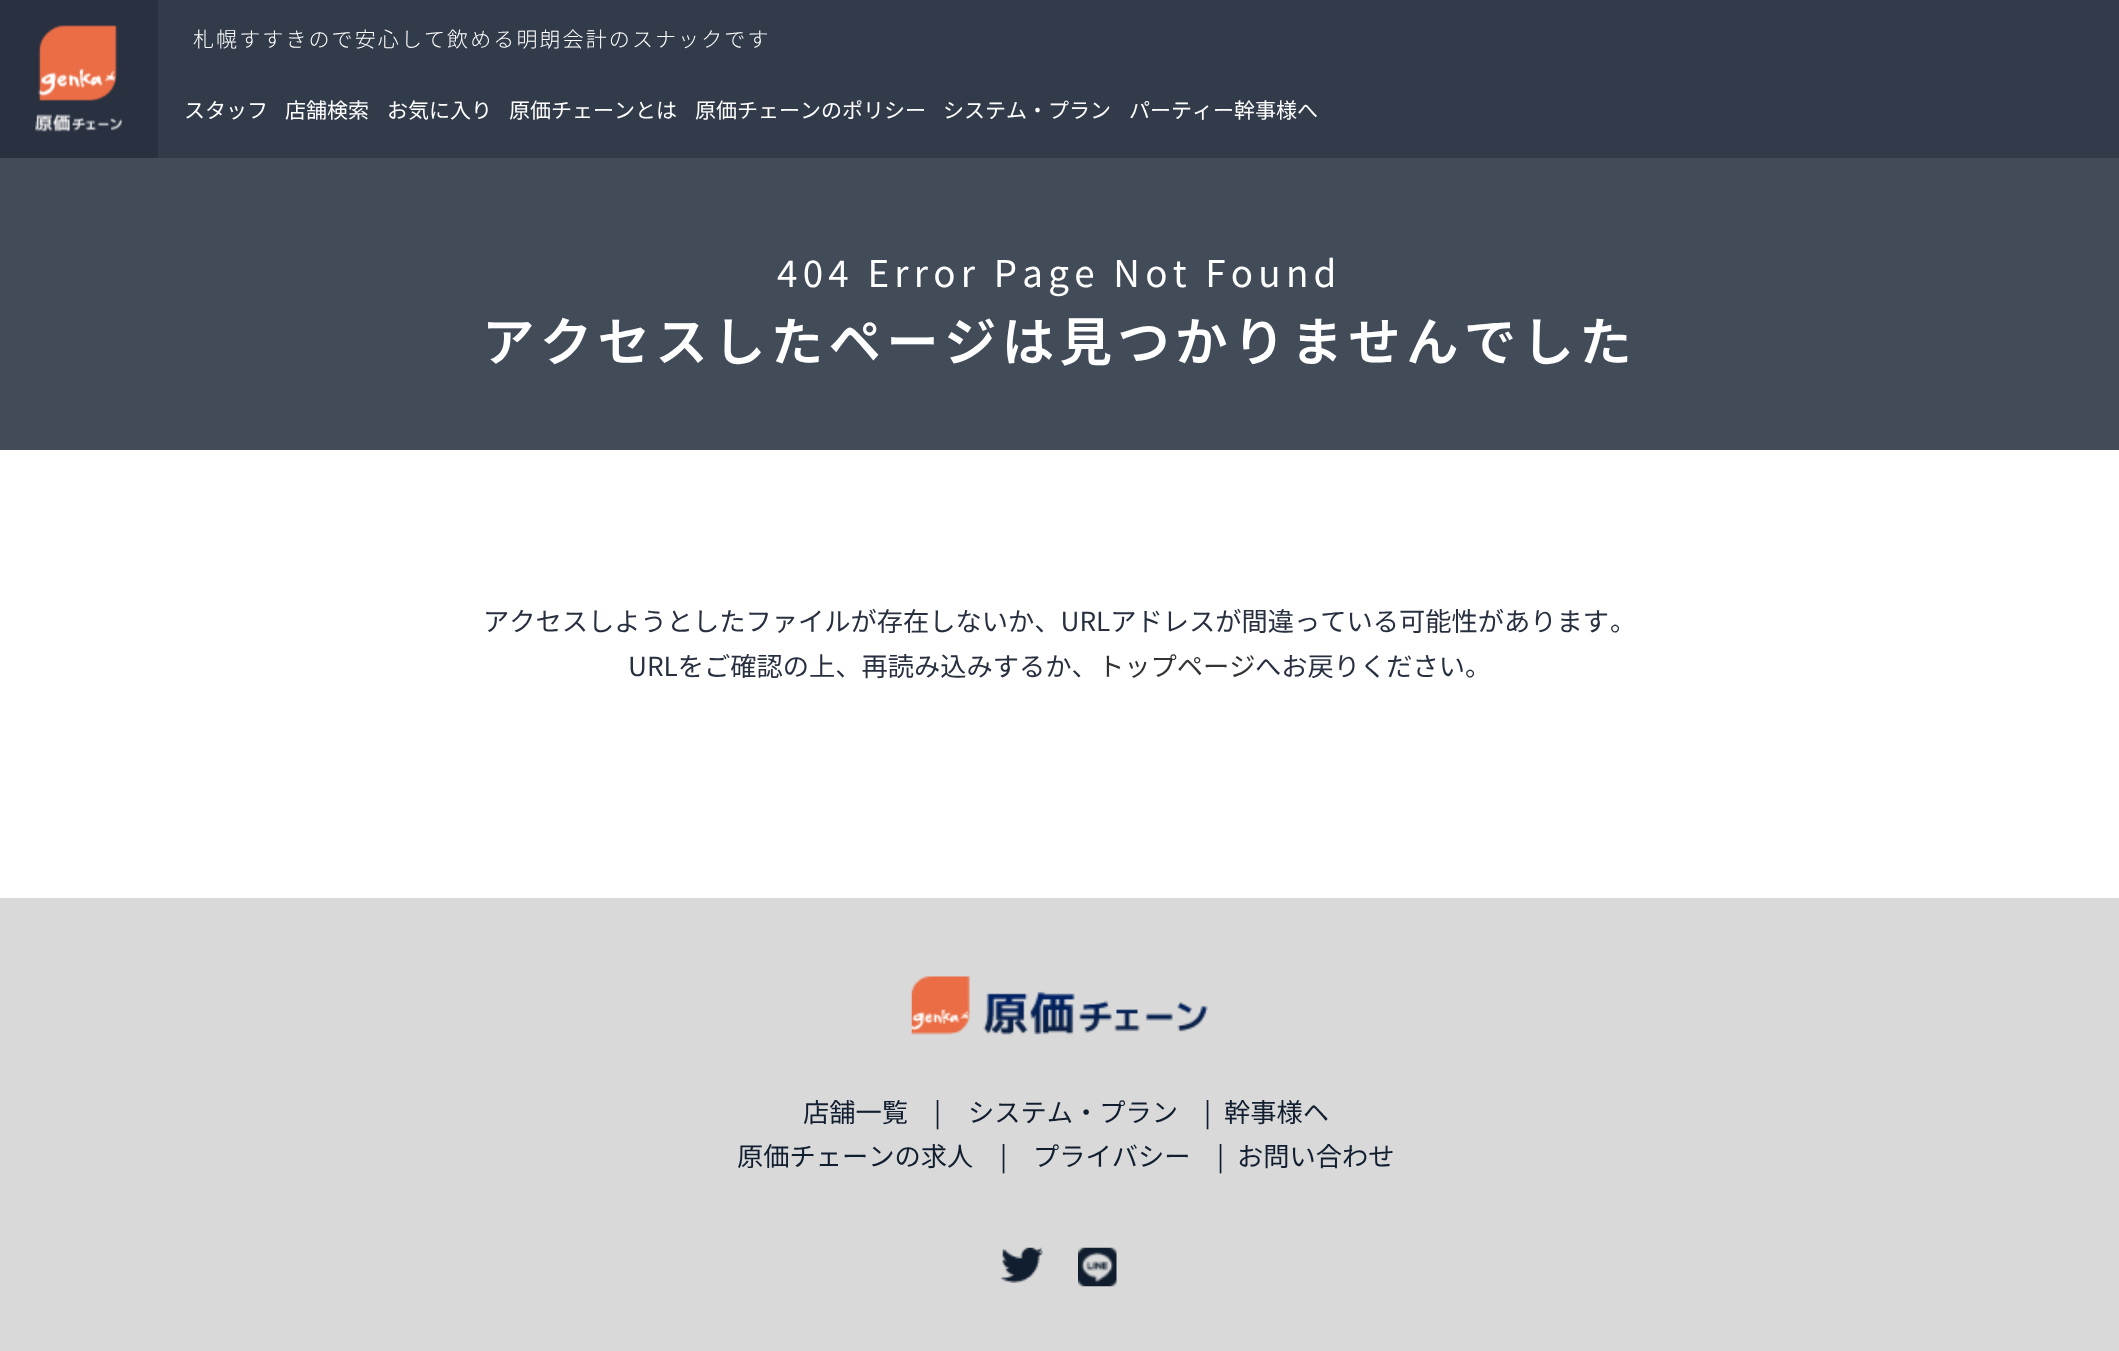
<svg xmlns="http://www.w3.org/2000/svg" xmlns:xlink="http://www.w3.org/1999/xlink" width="2119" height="1351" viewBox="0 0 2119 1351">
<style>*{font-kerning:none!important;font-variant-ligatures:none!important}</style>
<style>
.cls-1{font:300 21px Noto Sans JP;letter-spacing:2.1px;fill:#ffffff}
.cls-2{font:21px Noto Sans JP;fill:#ffffff}
.cls-3{font:36.75px Noto Sans JP;letter-spacing:5.25px;fill:#ffffff}
.cls-4{font:600 52.5px Noto Sans JP;letter-spacing:5.25px;fill:#ffffff}
.cls-5{font:26.25px Noto Sans JP;fill:#283040}
.cls-6{font:26.25px Noto Sans JP;fill:#333333}
.cls-7{font:26.25px Noto Sans JP;fill:#111e2f}
</style>
<rect width="100%" height="100%" fill="#ffffff"/>
<rect fill="#323b4a" x="158" y="0" width="1961" height="158"/>
<rect fill="#293141" x="0" y="0" width="158" height="158"/>
<image xlink:href="image0.png" x="35" y="25" width="88" height="107"/>
<rect fill="#424c59" x="0" y="158" width="2119" height="292"/>
<rect fill="#d9d9d9" x="0" y="898" width="2119" height="453"/>
<image xlink:href="image1.png" x="911" y="976" width="297" height="59"/>
<image xlink:href="image2.png" x="1001" y="1247" width="42" height="36"/>
<image xlink:href="image3.png" x="1078" y="1247" width="39" height="40"/>
<text class="cls-1" x="193" y="47">札幌すすきので安心して飲める明朗会計のスナックです</text>
<text class="cls-2" x="184" y="118">スタッフ</text>
<text class="cls-2" x="285" y="118">店舗検索</text>
<text class="cls-2" x="387" y="118">お気に入り</text>
<text class="cls-2" x="509" y="118">原価チェーンとは</text>
<text class="cls-2" x="695" y="118">原価チェーンのポリシー</text>
<text class="cls-2" x="943" y="118">システム・プラン</text>
<text class="cls-2" x="1129" y="118">パーティー幹事様へ</text>
<text class="cls-3" x="777" y="287">404 Error Page Not Found</text>
<text class="cls-4" x="482" y="361">アクセスしたページは見つかりませんでした</text>
<text class="cls-5" x="483" y="631">アクセスしようとしたファイルが存在しないか、URLアドレスが間違っている可能性があります</text>
<text class="cls-5" x="1610" y="631">。</text>
<text class="cls-5" x="628" y="676">URLをご確認の上、再読み込みするか、</text>
<text class="cls-6" x="1098" y="676">トップページ</text>
<text class="cls-5" x="1255" y="676">へお戻りください。</text>
<text class="cls-7" x="803" y="1122">店舗一覧</text>
<text class="cls-7" x="934" y="1122">|</text>
<text class="cls-7" x="968" y="1122">システム・プラン</text>
<text class="cls-7" x="1204" y="1122">|</text>
<text class="cls-7" x="1224" y="1122">幹事様ヘ</text>
<text class="cls-7" x="737" y="1166">原価チェーンの求人</text>
<text class="cls-7" x="1000" y="1166">|</text>
<text class="cls-7" x="1033" y="1166">プライバシー</text>
<text class="cls-7" x="1217" y="1166">|</text>
<text class="cls-7" x="1237" y="1166">お問い合わせ</text>
</svg>
